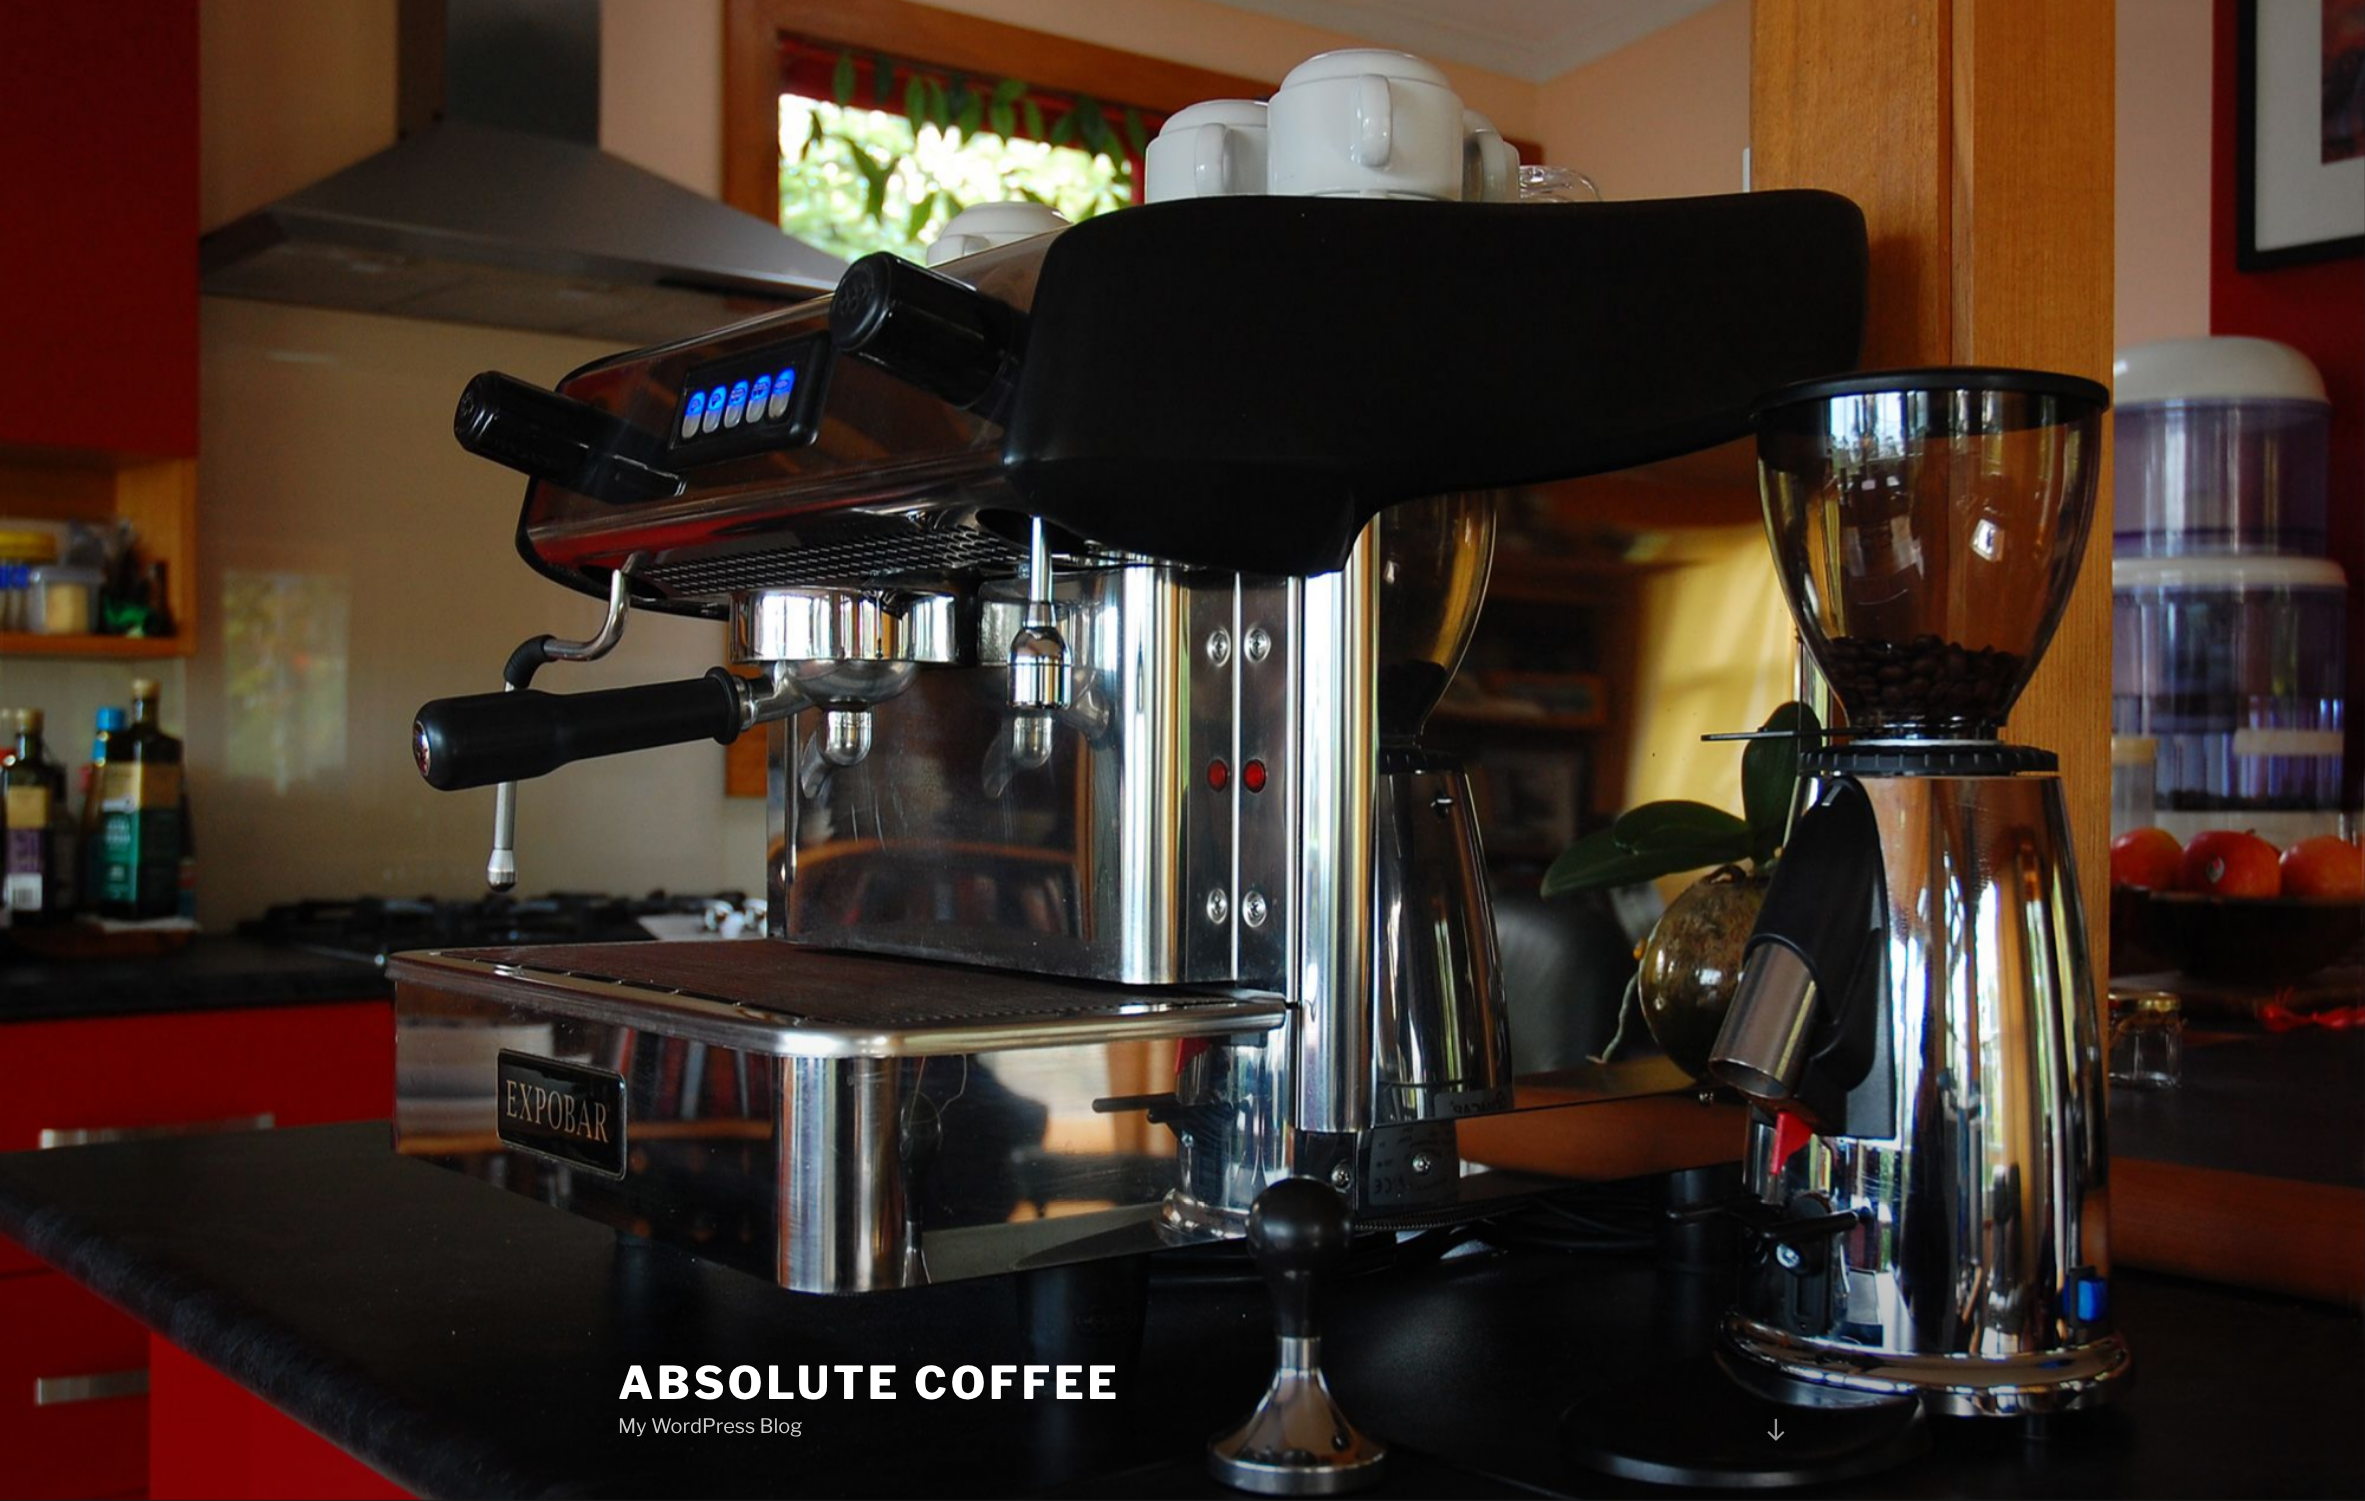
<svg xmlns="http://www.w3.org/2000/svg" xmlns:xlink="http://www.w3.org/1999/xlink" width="2365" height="1501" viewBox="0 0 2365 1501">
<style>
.cls-1{font:800 45px Libre Franklin;letter-spacing:3.6px;fill:#ffffff}
.cls-2{font:20px Libre Franklin;fill:#cdcdcd}
</style>
<defs>
<linearGradient id="g1" gradientUnits="userSpaceOnUse" x1="1183" y1="1006" x2="1183" y2="1501"><stop offset="0" stop-color="#000000" stop-opacity="0"/><stop offset="0.75" stop-color="#000000" stop-opacity="0.3"/><stop offset="1" stop-color="#000000" stop-opacity="0.3"/></linearGradient>
</defs>
<rect width="100%" height="100%" fill="#262626"/>
<image xlink:href="image0.png" x="0" y="0" width="2365" height="1501"/>
<rect fill="url(#g1)" x="0" y="1033" width="2365" height="468"/>
<image xlink:href="image1.png" x="1767" y="1418" width="18" height="23"/>
<text class="cls-1" x="618" y="1399">ABSOLUTE COFFEE</text>
<text class="cls-2" x="618" y="1433">My WordPress Blog</text>
</svg>
